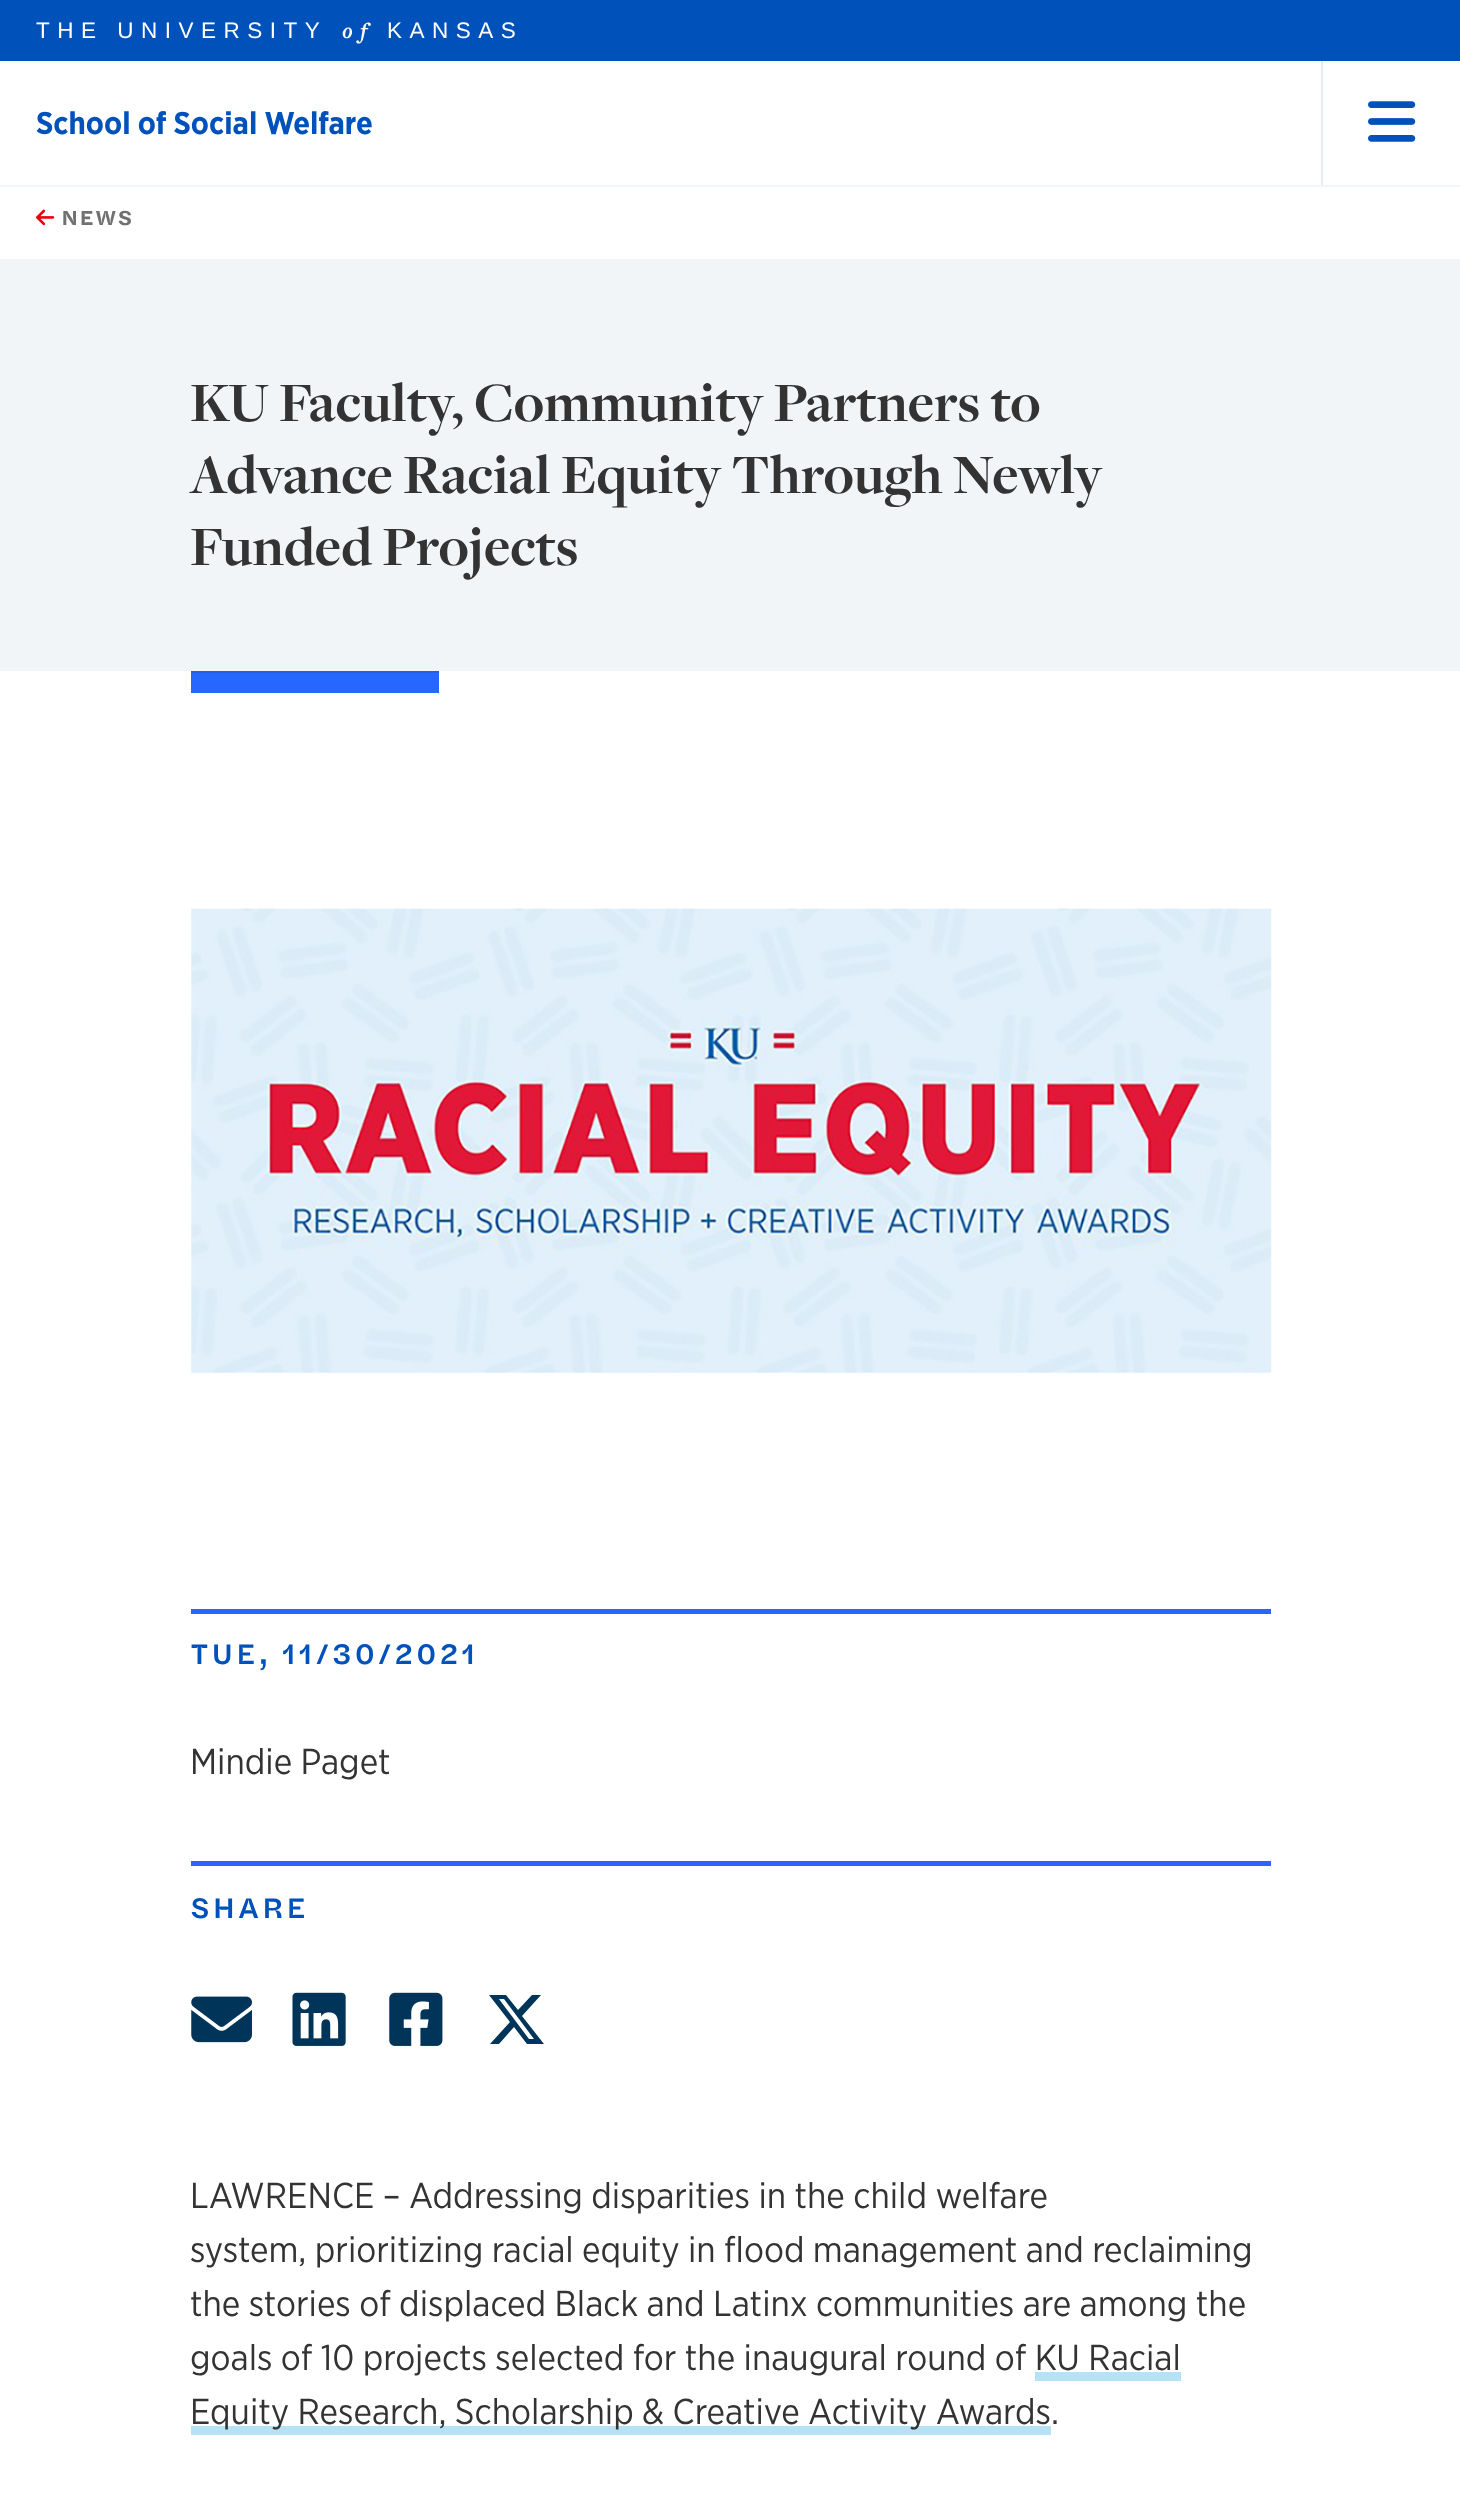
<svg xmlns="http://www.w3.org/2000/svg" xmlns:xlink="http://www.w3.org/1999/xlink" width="1460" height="2505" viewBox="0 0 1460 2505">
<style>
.cls-1{font:22.5px Liberation Sans;letter-spacing:7.5px;fill:#ffffff}
.cls-2{font:italic bold 22.5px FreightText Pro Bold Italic;letter-spacing:7.5px;fill:#ffffff}
.cls-3{font:bold 31.5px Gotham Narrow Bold;fill:#0051ba}
.cls-4{font:600 21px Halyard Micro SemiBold;letter-spacing:1px;fill:#707070}
.cls-5{font:bold 57.6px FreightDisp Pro;fill:#333333}
.cls-6{font:500 29.25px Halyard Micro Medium;letter-spacing:2.25px;fill:#0051ba}
.cls-7{font:36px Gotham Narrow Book;fill:#333333}
</style>
<rect width="100%" height="100%" fill="#ffffff"/>
<rect fill="#0051ba" x="0" y="0" width="1460" height="61"/>
<rect fill="#f2f5f8" x="0" y="185" width="1460" height="2"/>
<rect fill="#e7ecf2" x="1321" y="61" width="2" height="124"/>
<image xlink:href="image0.png" x="1368" y="101" width="48" height="41"/>
<image xlink:href="image1.png" x="36" y="209" width="19" height="17"/>
<rect fill="#f2f5f8" x="0" y="259" width="1460" height="412"/>
<rect fill="#2767ff" x="191" y="673" width="248" height="20"/>
<rect fill="#235de6" x="191" y="671" width="248" height="2"/>
<image xlink:href="image2.png" x="191" y="908" width="1081" height="466"/>
<rect fill="#2767ff" x="191" y="1609" width="1080" height="5"/>
<rect fill="#2767ff" x="191" y="1861" width="1080" height="5"/>
<image xlink:href="image3.png" x="191" y="1996" width="61" height="47"/>
<image xlink:href="image4.png" x="292" y="1992" width="54" height="54"/>
<image xlink:href="image5.png" x="389" y="1992" width="54" height="54"/>
<path fill="#003459" d="M532 1995H541L522 2016L544 2044H527L514 2027L499 2044H490L510 2022L489 1995H506L518 2010ZM529 2039H534L504 1999H499Z"/>
<rect fill="#b6e2f5" x="191" y="2426" width="860" height="9"/>
<text class="cls-1" x="36" y="38">THE UNIVERSITY</text>
<text class="cls-2" x="342" y="38">of</text>
<text class="cls-1" x="387" y="38">KANSAS</text>
<text class="cls-3" x="36" y="134">School of Social Welfare</text>
<text class="cls-4" x="61" y="225">NEWS</text>
<text class="cls-5"><tspan x="190" y="421">KU Faculty, Community Partners to</tspan><tspan x="190" y="493">Advance Racial Equity Through Newly</tspan><tspan x="190" y="565">Funded Projects</tspan></text>
<text class="cls-6" x="190" y="1664">TUE, 11/30/2021</text>
<text class="cls-7" x="190" y="1774">Mindie Paget</text>
<text class="cls-6" x="190" y="1918">SHARE</text>
<text class="cls-7"><tspan x="190" y="2208">LAWRENCE – Addressing disparities in the child welfare</tspan><tspan x="190" y="2262">system, prioritizing racial equity in flood management and reclaiming</tspan><tspan x="190" y="2316">the stories of displaced Black and Latinx communities are among the</tspan><tspan x="190" y="2370">goals of 10 projects selected for the inaugural round of KU Racial</tspan><tspan x="190" y="2424">Equity Research, Scholarship &amp; Creative Activity Awards.</tspan></text>
<rect fill="#b6e2f5" x="1035" y="2372" width="146" height="9"/>
</svg>
